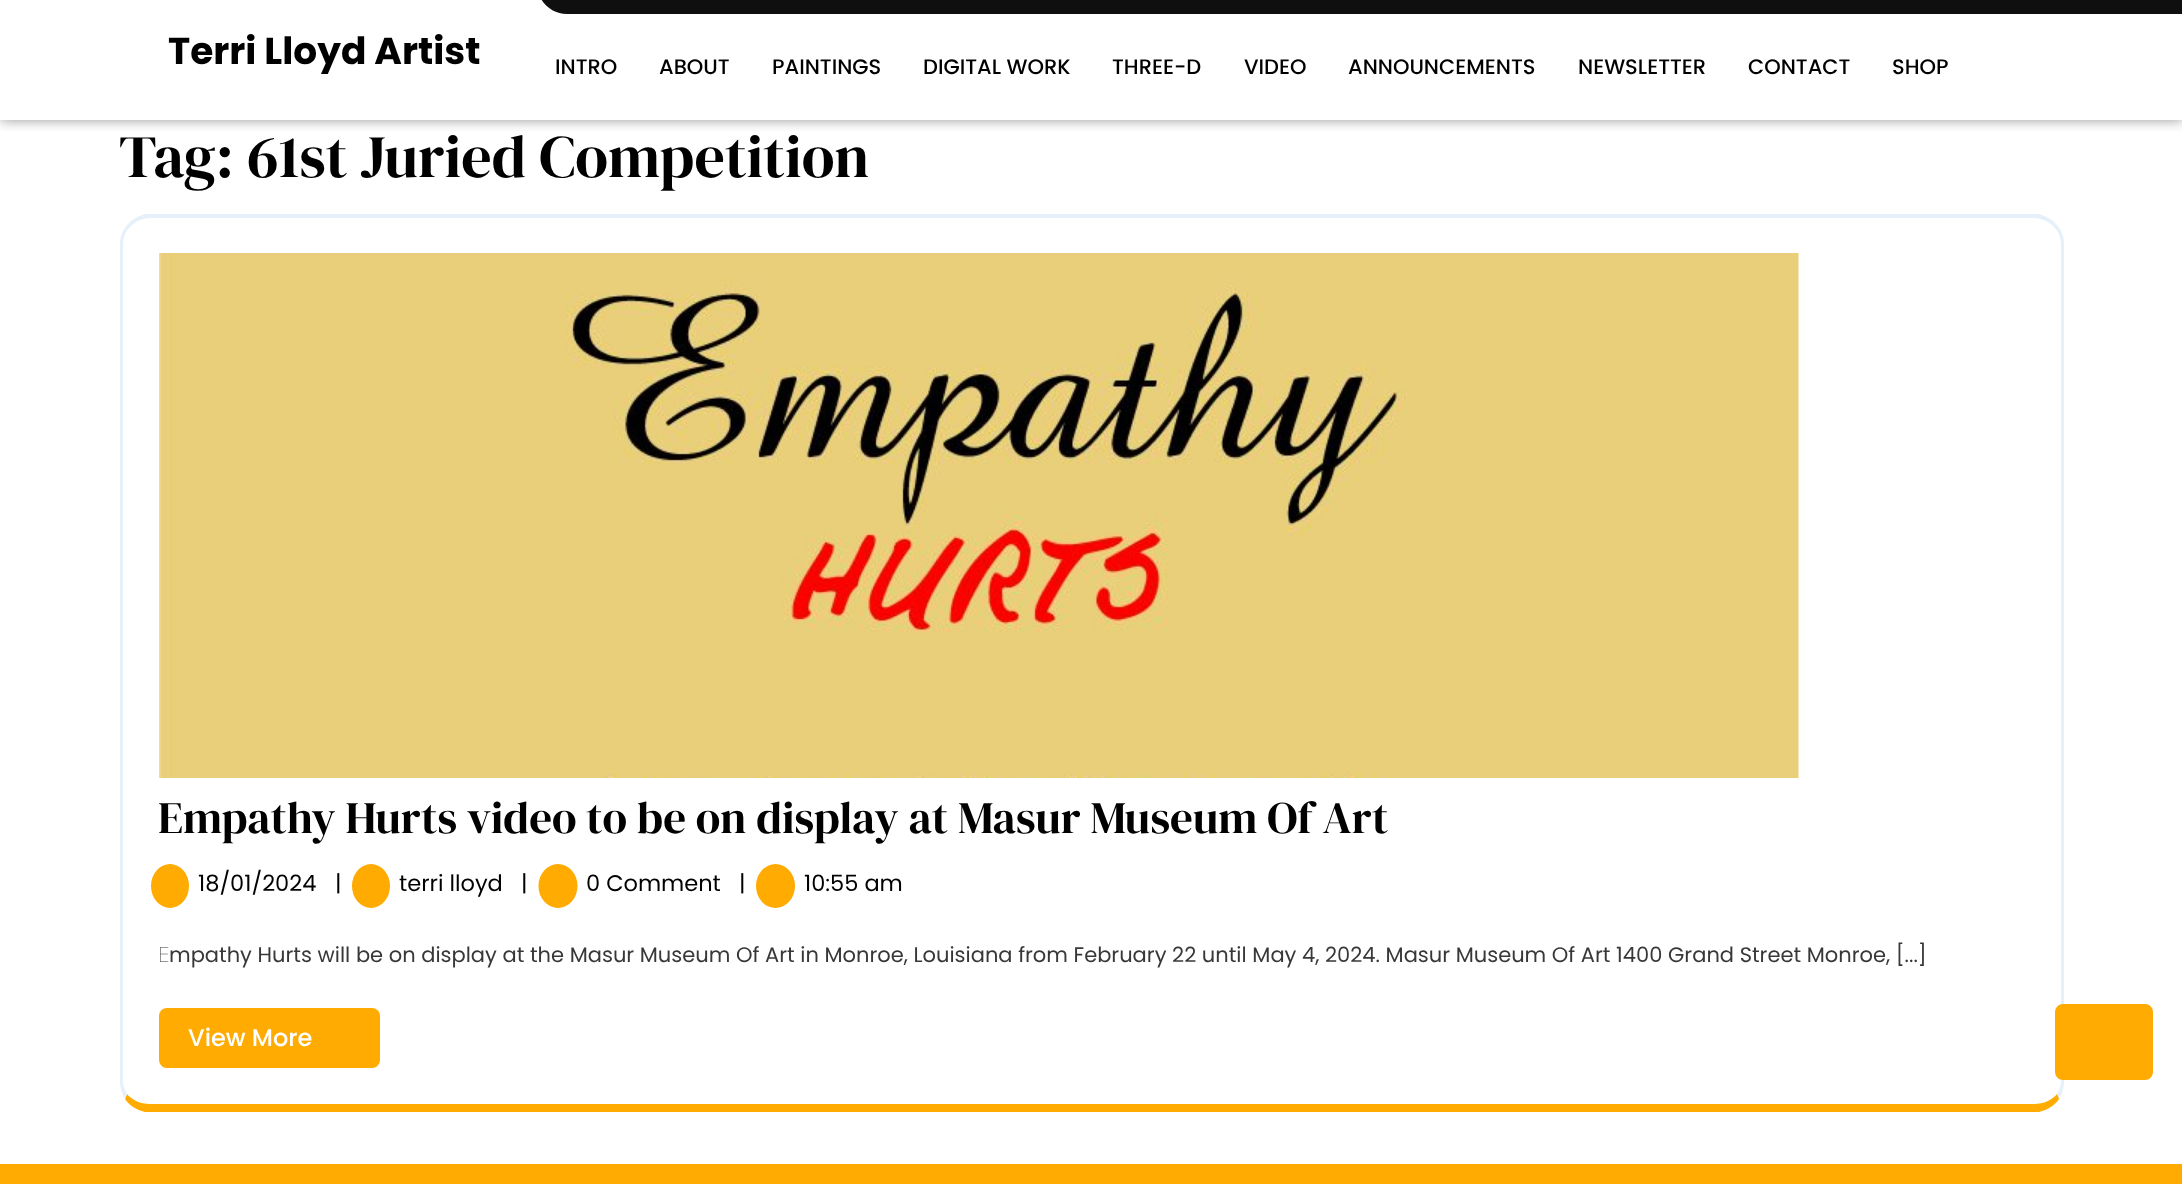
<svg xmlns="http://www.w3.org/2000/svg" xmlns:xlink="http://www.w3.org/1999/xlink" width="2182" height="1184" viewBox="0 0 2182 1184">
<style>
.cls-1{font:bold 37.5px Poppins;fill:#000000}
.cls-2{font:500 21px Poppins;fill:#000000}
.cls-3{font:60px DM Serif Display;fill:#000000}
.cls-4{font:45px DM Serif Display;fill:#000000}
.cls-5{font:22.5px Poppins;fill:#000000}
.cls-6{font:100 21px Noto Sans;fill:#383838}
.cls-7{font:21px Poppins;fill:#383838}
.cls-8{font:500 24px Poppins;fill:#ffffff}
</style>
<defs>
<clipPath id="clip1"><rect x="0" y="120" width="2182" height="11"/></clipPath>
</defs>
<rect width="100%" height="100%" fill="#ffffff"/>
<g clip-path="url(#clip1)">
<rect fill="#000000" fill-opacity="0.42" filter="blur(6.5px)" x="0" y="-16" width="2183" height="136"/>
</g>
<path fill="#0f0f0f" d="M537-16H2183V14H567C550.5 14 537 .5 537-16Z"/>
<path fill="#e6f0fa" d="M150 218C143 218 136 221 131 226L129 223C133 219 138 216 145 214H2039C2046 216 2051 219 2055 223L2053 226C2048 221 2041 218 2034 218Z"/>
<path fill="#e6f0fa" d="M2064 1082V244C2064 236 2061 229 2055 223L2053 226C2058 230 2061 237 2061 244V1082C2061 1086 2059 1090 2057 1094L2059 1099C2062 1094 2064 1088 2064 1082Z"/>
<path fill="#ffab01" d="M145 1112C136 1110 129 1105 125 1099L127 1094C132 1100 140 1104 150 1104H2034C2044 1104 2052 1100 2057 1094L2059 1099C2055 1105 2048 1110 2039 1112Z"/>
<path fill="#e6f0fa" d="M120 244V1082C120 1088 122 1094 125 1099L127 1094C125 1090 123 1086 123 1082V244C123 237 126 230 131 226L129 223C123 229 120 236 120 244Z"/>
<image xlink:href="image0.png" x="159" y="253" width="1640" height="525"/>
<ellipse fill="#ffab01" cx="170" cy="886" rx="19" ry="22"/>
<ellipse fill="#ffab01" cx="371" cy="886" rx="19" ry="22"/>
<ellipse fill="#ffab01" cx="558" cy="886" rx="19.5" ry="22"/>
<ellipse fill="#ffab01" cx="775.5" cy="886" rx="19.5" ry="22"/>
<rect fill="#ffab01" x="159" y="1008" width="221" height="60" rx="8"/>
<rect fill="#ffab01" stroke="#ffab01" stroke-width="3" x="2056.5" y="1005.5" width="95" height="73" rx="6.5"/>
<rect fill="#ffab01" x="0" y="1164" width="2182" height="20"/>
<text class="cls-1" x="168" y="64">Terri Lloyd Artist</text>
<text class="cls-2" x="555" y="74">INTRO</text>
<text class="cls-2" x="659" y="74">ABOUT</text>
<text class="cls-2" x="772" y="74">PAINTINGS</text>
<text class="cls-2" x="923" y="74">DIGITAL WORK</text>
<text class="cls-2" x="1112" y="74">THREE-D</text>
<text class="cls-2" x="1244" y="74">VIDEO</text>
<text class="cls-2" x="1348" y="74">ANNOUNCEMENTS</text>
<text class="cls-2" x="1578" y="74">NEWSLETTER</text>
<text class="cls-2" x="1748" y="74">CONTACT</text>
<text class="cls-2" x="1892" y="74">SHOP</text>
<text class="cls-3" x="119" y="177">Tag: 61st Juried Competition</text>
<text class="cls-4" x="158" y="833">Empathy Hurts video to be on display at Masur Museum Of Art</text>
<text class="cls-5" x="198" y="891">18/01/2024</text>
<text class="cls-5" x="335" y="891">|</text>
<text class="cls-5" x="399" y="891">terri lloyd</text>
<text class="cls-5" x="521" y="891">|</text>
<text class="cls-5" x="586" y="891">0 Comment</text>
<text class="cls-5" x="739" y="891">|</text>
<text class="cls-5" x="804" y="891">10:55 am</text>
<text class="cls-6" x="158" y="962">E</text>
<text class="cls-7" x="169" y="962">mpathy Hurts will be on display at the Masur Museum Of Art in Monroe, Louisiana from February 22 until May 4, 2024. Masur Museum Of Art 1400 Grand Street Monroe, [...]</text>
<text class="cls-8" x="188" y="1046">View More</text>
</svg>
